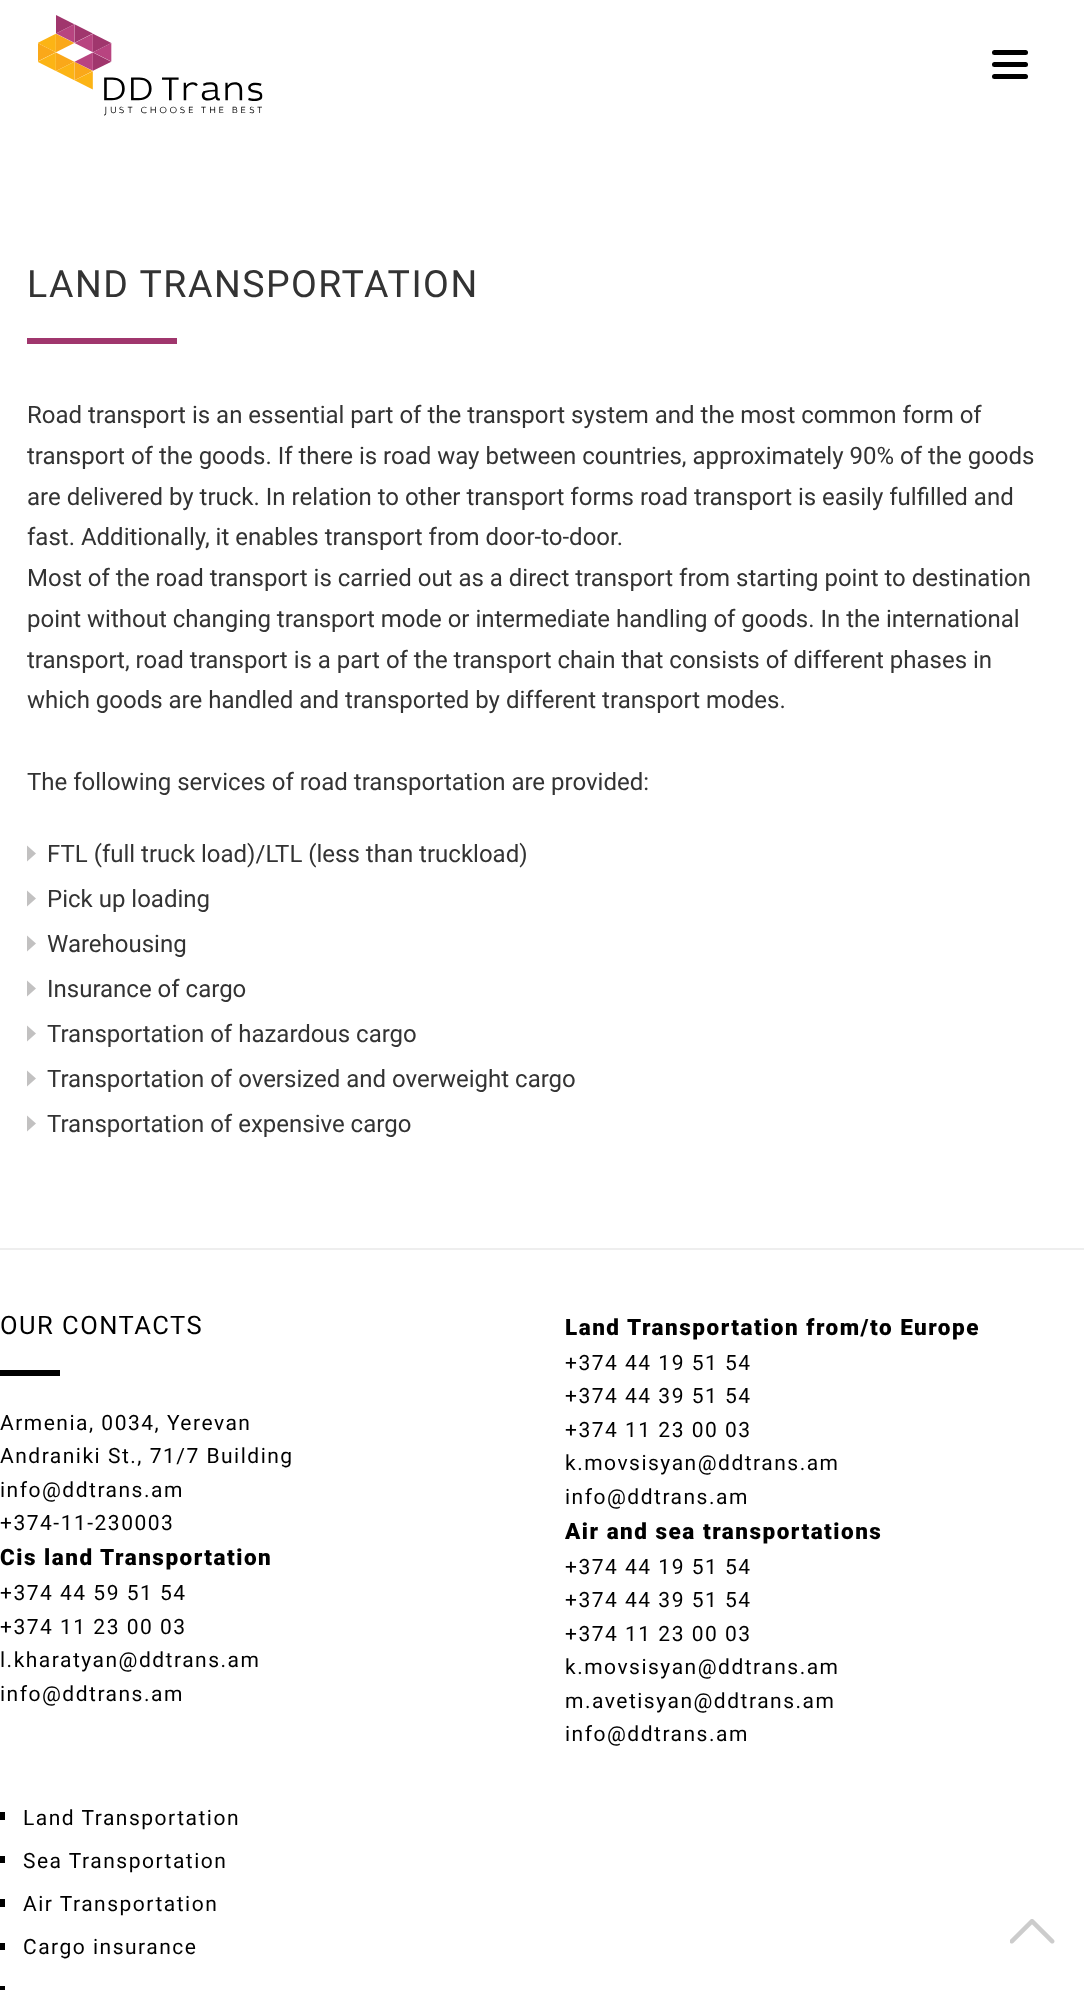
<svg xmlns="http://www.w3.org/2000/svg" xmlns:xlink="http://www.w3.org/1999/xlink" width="1084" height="1990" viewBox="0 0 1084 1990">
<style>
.cls-1{font:37.5px Roboto;letter-spacing:1.5px;fill:#333333}
.cls-2{font:24px Roboto;fill:#333333}
.cls-3{font:25.5px Roboto;letter-spacing:1.5px;fill:#000000}
.cls-4{font:21px Roboto;letter-spacing:1.5px;fill:#000000}
.cls-5{font:900 22.5px Roboto;letter-spacing:1.5px;fill:#000000}
</style>
<rect width="100%" height="100%" fill="#ffffff"/>
<image xlink:href="image0.png" x="38" y="15" width="225" height="101"/>
<rect fill="#000000" x="992" y="62" width="36" height="5" rx="2.5"/>
<rect fill="#000000" x="992" y="50" width="36" height="5" rx="2.5"/>
<rect fill="#000000" x="992" y="74" width="36" height="5" rx="2.5"/>
<rect fill="#a0366d" x="27" y="338" width="150" height="6"/>
<image xlink:href="image1.png" x="27" y="845" width="9" height="17"/>
<image xlink:href="image1.png" x="27" y="890" width="9" height="17"/>
<image xlink:href="image1.png" x="27" y="935" width="9" height="17"/>
<image xlink:href="image1.png" x="27" y="980" width="9" height="17"/>
<image xlink:href="image1.png" x="27" y="1025" width="9" height="17"/>
<image xlink:href="image1.png" x="27" y="1070" width="9" height="17"/>
<image xlink:href="image1.png" x="27" y="1115" width="9" height="17"/>
<rect fill="#eeeeee" x="0" y="1248" width="1084" height="2"/>
<rect fill="#000000" x="0" y="1370" width="60" height="6"/>
<rect fill="#000000" x="0" y="1812" width="5" height="8"/>
<rect fill="#000000" x="0" y="1856" width="5" height="7"/>
<rect fill="#000000" x="0" y="1899" width="5" height="8"/>
<rect fill="#000000" x="0" y="1943" width="5" height="7"/>
<rect fill="#000000" x="0" y="1986" width="5" height="4"/>
<image xlink:href="image2.png" x="1010" y="1919" width="45" height="25"/>
<text class="cls-1" x="27" y="297">LAND TRANSPORTATION</text>
<text class="cls-2"><tspan x="27" y="423">Road transport is an essential part of the transport system and the most common form of</tspan><tspan x="27" y="464">transport of the goods. If there is road way between countries, approximately 90% of the goods</tspan><tspan x="27" y="505">are delivered by truck. In relation to other transport forms road transport is easily fulfilled and</tspan><tspan x="27" y="545">fast. Additionally, it enables transport from door-to-door.</tspan><tspan x="27" y="586">Most of the road transport is carried out as a direct transport from starting point to destination</tspan><tspan x="27" y="627">point without changing transport mode or intermediate handling of goods. In the international</tspan><tspan x="27" y="668">transport, road transport is a part of the transport chain that consists of different phases in</tspan><tspan x="27" y="708">which goods are handled and transported by different transport modes.</tspan></text>
<text class="cls-2" x="27" y="790">The following services of road transportation are provided:</text>
<text class="cls-2"><tspan x="47" y="862">FTL (full truck load)/LTL (less than truckload)</tspan><tspan x="47" y="907">Pick up loading</tspan><tspan x="47" y="952">Warehousing</tspan><tspan x="47" y="997">Insurance of cargo</tspan><tspan x="47" y="1042">Transportation of hazardous cargo</tspan><tspan x="47" y="1087">Transportation of oversized and overweight cargo</tspan><tspan x="47" y="1132">Transportation of expensive cargo</tspan></text>
<text class="cls-3" x="0" y="1334">OUR CONTACTS</text>
<text class="cls-4"><tspan x="0" y="1430">Armenia, 0034, Yerevan</tspan><tspan x="0" y="1463">Andraniki St., 71/7 Building</tspan><tspan x="0" y="1497">info@ddtrans.am</tspan><tspan x="0" y="1530">+374-11-230003</tspan></text>
<text class="cls-5" x="0" y="1565">Cis land Transportation</text>
<text class="cls-4"><tspan x="0" y="1600">+374 44 59 51 54</tspan><tspan x="0" y="1634">+374 11 23 00 03</tspan><tspan x="0" y="1667">l.kharatyan@ddtrans.am</tspan><tspan x="0" y="1701">info@ddtrans.am</tspan></text>
<text class="cls-5" x="565" y="1335">Land Transportation from/to Europe</text>
<text class="cls-4"><tspan x="565" y="1370">+374 44 19 51 54</tspan><tspan x="565" y="1403">+374 44 39 51 54</tspan><tspan x="565" y="1437">+374 11 23 00 03</tspan><tspan x="565" y="1470">k.movsisyan@ddtrans.am</tspan><tspan x="565" y="1504">info@ddtrans.am</tspan></text>
<text class="cls-5" x="565" y="1539">Air and sea transportations</text>
<text class="cls-4"><tspan x="565" y="1574">+374 44 19 51 54</tspan><tspan x="565" y="1607">+374 44 39 51 54</tspan><tspan x="565" y="1641">+374 11 23 00 03</tspan><tspan x="565" y="1674">k.movsisyan@ddtrans.am</tspan><tspan x="565" y="1708">m.avetisyan@ddtrans.am</tspan><tspan x="565" y="1741">info@ddtrans.am</tspan></text>
<text class="cls-4" x="23" y="1825">Land Transportation</text>
<text class="cls-4" x="23" y="1868">Sea Transportation</text>
<text class="cls-4" x="23" y="1911">Air Transportation</text>
<text class="cls-4" x="23" y="1954">Cargo insurance</text>
</svg>
